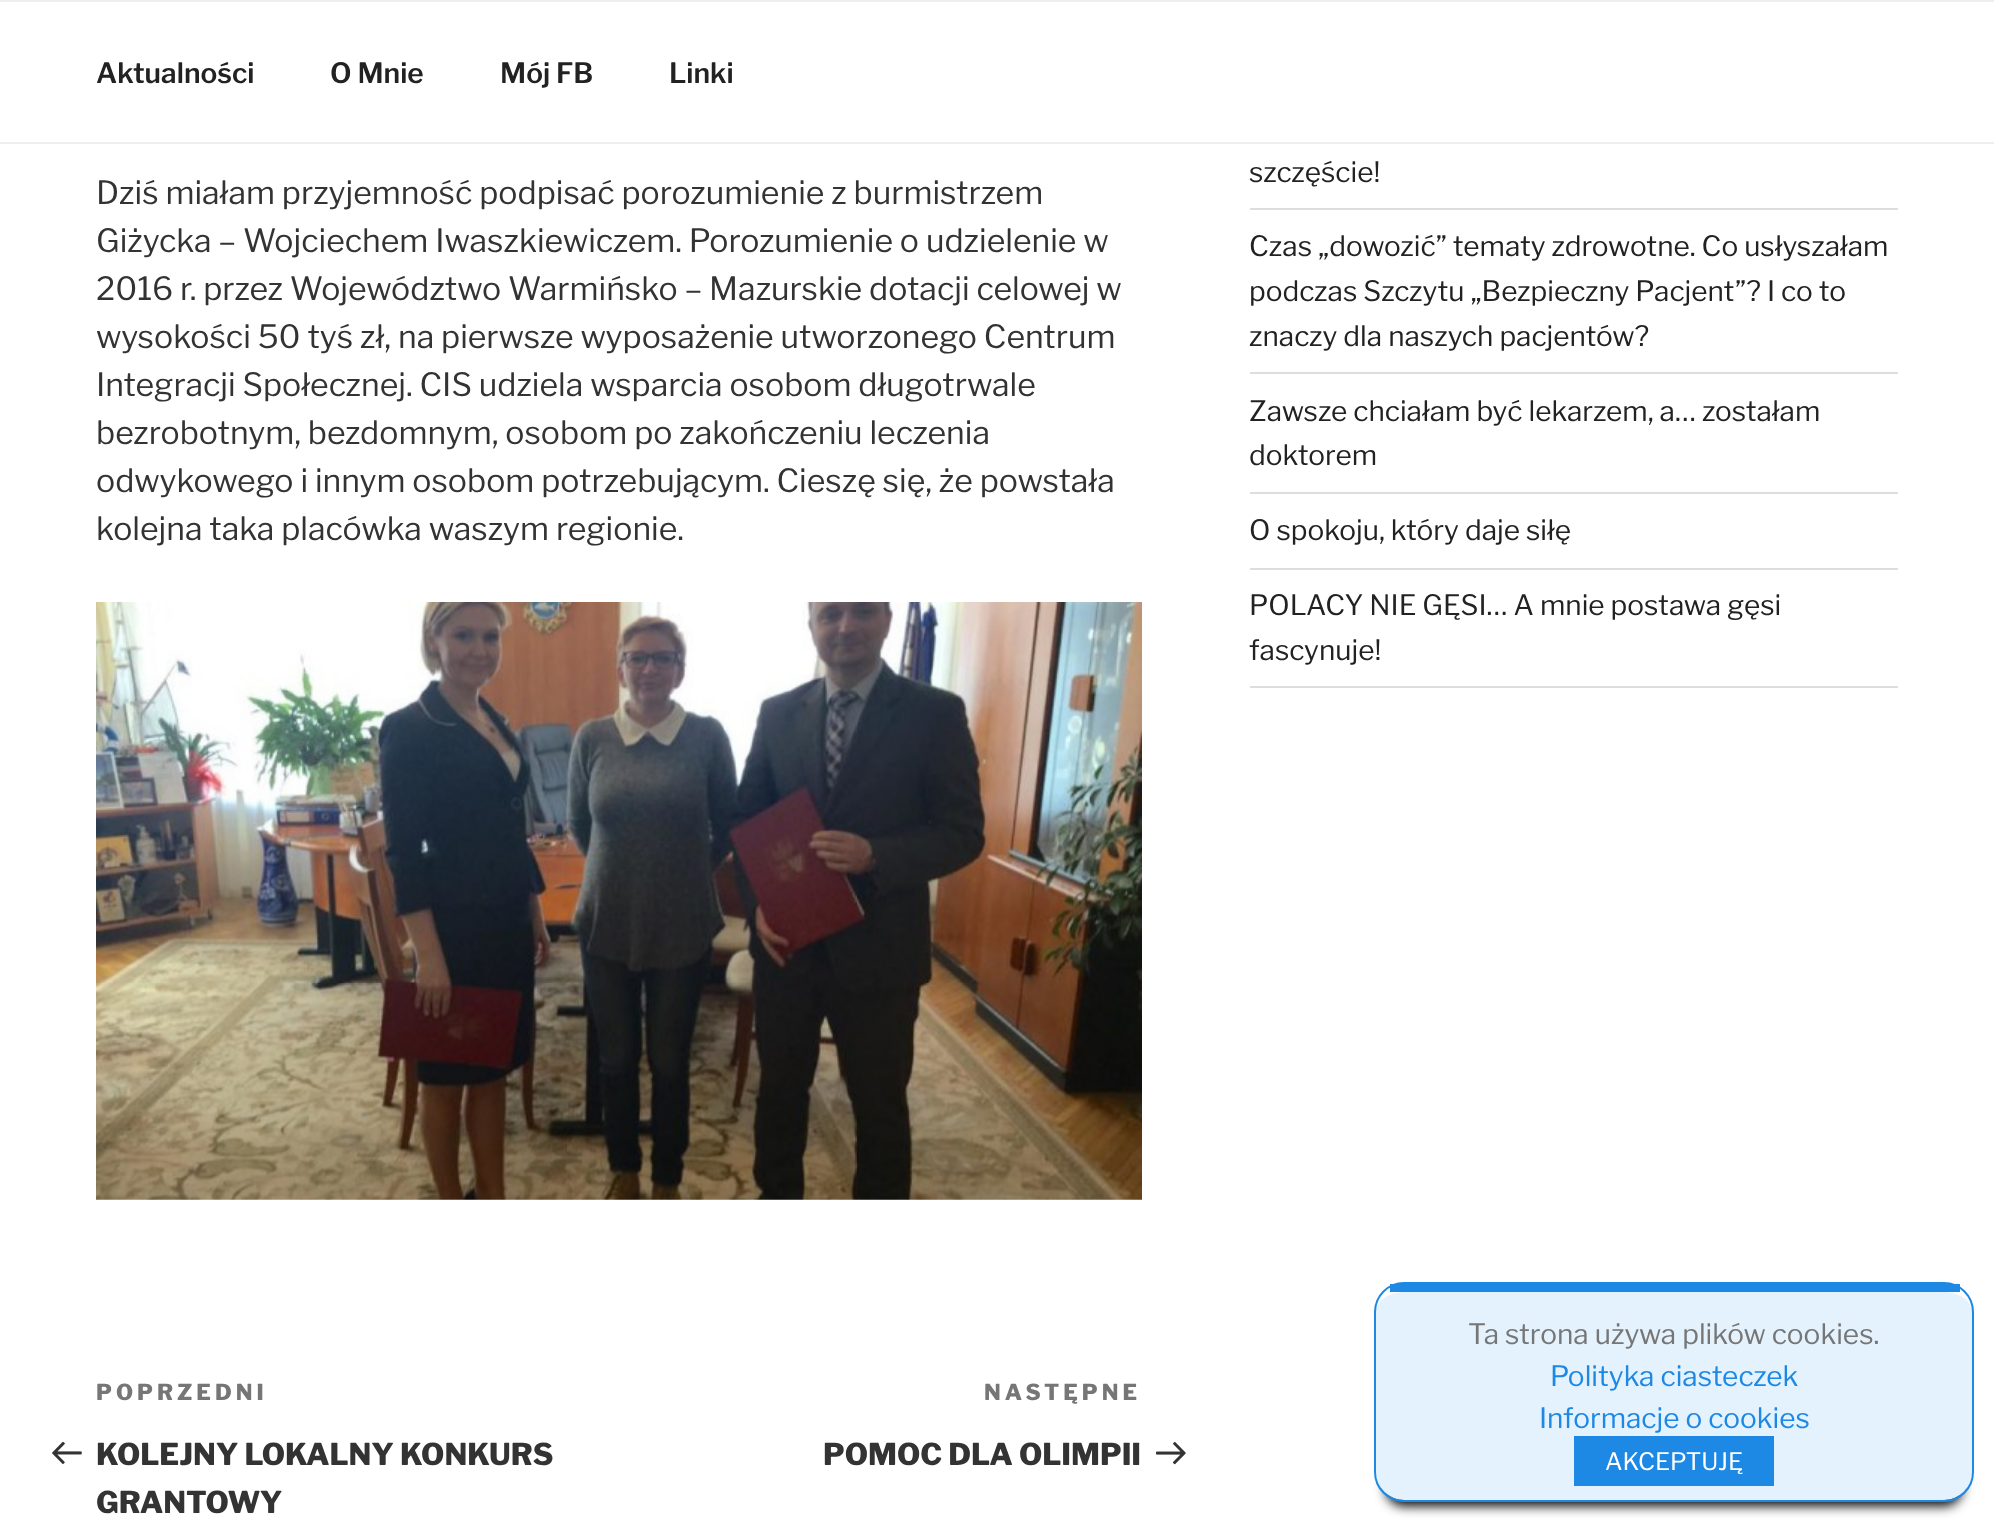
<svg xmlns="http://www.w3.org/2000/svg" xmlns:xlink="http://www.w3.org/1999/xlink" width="1994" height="1521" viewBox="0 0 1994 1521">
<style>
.cls-1{font:100 28px 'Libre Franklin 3';fill:#222222}
.cls-2{font:100 32px 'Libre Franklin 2';fill:#333333}
.cls-3{font:100 22px Libre Franklin;letter-spacing:4px;fill:#767676}
.cls-4{font:100 30px Libre Franklin;fill:#333333}
.cls-5{font:100 28px 'Libre Franklin 2';fill:#222222}
.cls-6{font:100 28px 'Libre Franklin 2';fill:#767676}
.cls-7{font:100 28px 'Libre Franklin 2';fill:#1e88e5}
.cls-8{font:100 24px 'Libre Franklin 2';fill:#ffffff}
</style>
<rect width="100%" height="100%" fill="#ffffff"/>
<rect fill="#eeeeee" x="0" y="0" width="1994" height="2"/>
<rect fill="#eeeeee" x="0" y="142" width="1994" height="2"/>
<image xlink:href="image0.png" x="96" y="602" width="1046" height="598"/>
<image xlink:href="image1.png" x="52" y="1441" width="30" height="24"/>
<image xlink:href="image2.png" x="1156" y="1441" width="30" height="24"/>
<rect fill="#dddddd" x="1250" y="208" width="648" height="2"/>
<rect fill="#dddddd" x="1250" y="372" width="648" height="2"/>
<rect fill="#dddddd" x="1250" y="492" width="648" height="2"/>
<rect fill="#dddddd" x="1250" y="568" width="648" height="2"/>
<rect fill="#dddddd" x="1250" y="686" width="648" height="2"/>
<rect fill="#000000" filter="blur(6px)" x="1386" y="1310" width="576" height="196" rx="18"/>
<path fill="#e3f2fd" d="M1404 1292H1944C1959 1292 1972 1301 1972 1312V1472C1972 1487 1959 1500 1944 1500H1404C1389 1500 1376 1487 1376 1472V1312C1376 1301 1389 1292 1404 1292Z"/>
<rect fill="none" stroke="#1e88e5" stroke-width="2" x="1375" y="1283" width="598" height="218" rx="29"/>
<rect fill="#1e88e5" x="1390" y="1284" width="570" height="8"/>
<rect fill="#1e88e5" x="1574" y="1436" width="200" height="50"/>
<text class="cls-1" x="96" y="83">Aktualności</text>
<text class="cls-1" x="330" y="83">O Mnie</text>
<text class="cls-1" x="500" y="83">Mój FB</text>
<text class="cls-1" x="669" y="83">Linki</text>
<text class="cls-2"><tspan x="96" y="204">Dziś miałam przyjemność podpisać porozumienie z burmistrzem</tspan><tspan x="96" y="252">Giżycka – Wojciechem Iwaszkiewiczem. Porozumienie o udzielenie w</tspan><tspan x="96" y="300">2016 r. przez Województwo Warmińsko – Mazurskie dotacji celowej w</tspan><tspan x="96" y="348">wysokości 50 tyś zł, na pierwsze wyposażenie utworzonego Centrum</tspan><tspan x="96" y="396">Integracji Społecznej. CIS udziela wsparcia osobom długotrwale</tspan><tspan x="96" y="444">bezrobotnym, bezdomnym, osobom po zakończeniu leczenia</tspan><tspan x="96" y="492">odwykowego i innym osobom potrzebującym. Cieszę się, że powstała</tspan><tspan x="96" y="540">kolejna taka placówka waszym regionie.</tspan></text>
<text class="cls-3" x="96" y="1400">POPRZEDNI</text>
<text class="cls-4"><tspan x="96" y="1465">KOLEJNY LOKALNY KONKURS</tspan><tspan x="96" y="1513">GRANTOWY</tspan></text>
<text class="cls-3" x="984" y="1400">NASTĘPNE</text>
<text class="cls-4" x="823" y="1465">POMOC DLA OLIMPII</text>
<text class="cls-5" x="1249" y="182">szczęście!</text>
<text class="cls-5"><tspan x="1249" y="256">Czas „dowozić” tematy zdrowotne. Co usłyszałam</tspan><tspan x="1249" y="301">podczas Szczytu „Bezpieczny Pacjent”? I co to</tspan><tspan x="1249" y="346">znaczy dla naszych pacjentów?</tspan></text>
<text class="cls-5"><tspan x="1249" y="421">Zawsze chciałam być lekarzem, a… zostałam</tspan><tspan x="1249" y="465">doktorem</tspan></text>
<text class="cls-5" x="1249" y="540">O spokoju, który daje siłę</text>
<text class="cls-5"><tspan x="1249" y="615">POLACY NIE GĘSI… A mnie postawa gęsi</tspan><tspan x="1249" y="660">fascynuje!</tspan></text>
<text class="cls-6" x="1468" y="1344">Ta strona używa plików cookies.</text>
<text class="cls-7" x="1550" y="1386">Polityka ciasteczek</text>
<text class="cls-7" x="1539" y="1428">Informacje o cookies</text>
<text class="cls-8" x="1605" y="1470">AKCEPTUJĘ</text>
</svg>
